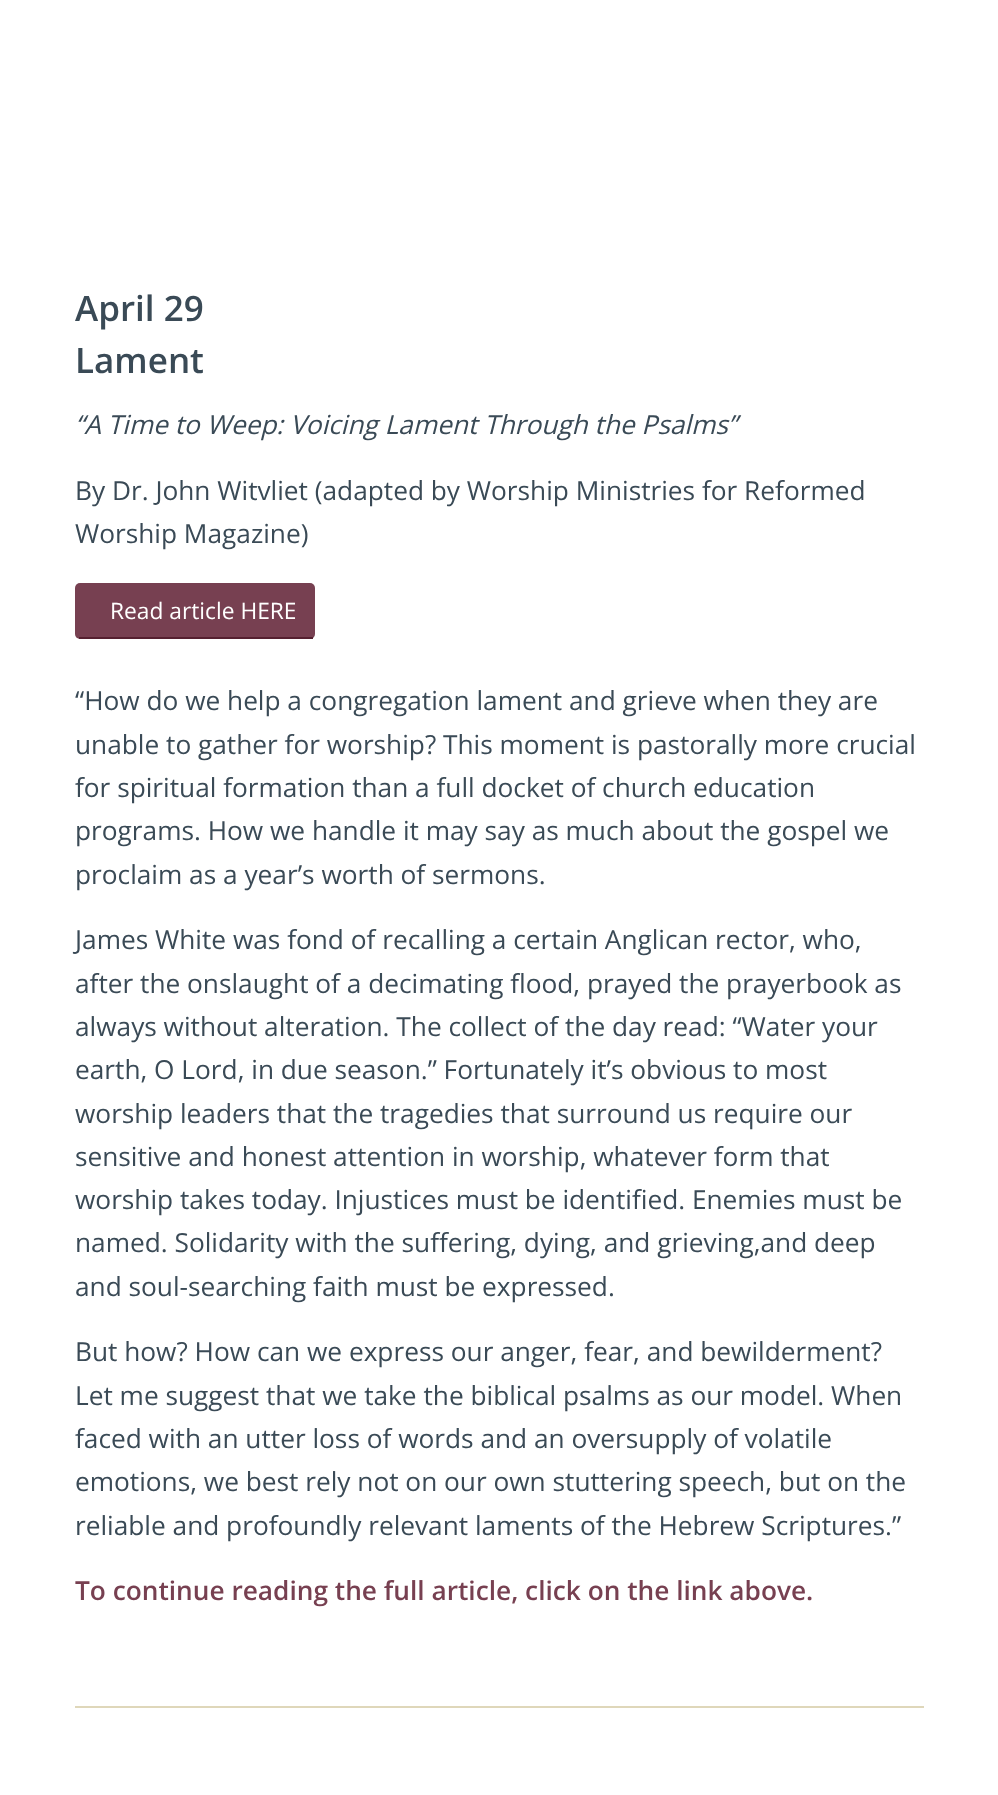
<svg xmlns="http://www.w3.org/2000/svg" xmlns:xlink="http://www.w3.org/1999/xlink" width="998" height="1795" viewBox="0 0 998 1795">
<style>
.cls-1{font:600 35px Open Sans;fill:#3a4a56}
.cls-2{font:italic 26.25px Open Sans;fill:#3a4a56}
.cls-3{font:26.25px Open Sans;fill:#3a4a56}
.cls-4{font:22.75px Open Sans;fill:#ffffff}
.cls-5{font:600 26.25px Open Sans;fill:#774051}
</style>
<rect width="100%" height="100%" fill="#ffffff"/>
<rect fill="#774051" x="75" y="583" width="240" height="56" rx="5"/>
<rect fill="#552030" x="79" y="637" width="234" height="2"/>
<rect fill="#dfd7ba" x="75" y="1706" width="849" height="2"/>
<text class="cls-1"><tspan x="75" y="321">April 29</tspan><tspan x="75" y="373">Lament</tspan></text>
<text class="cls-2" x="75" y="434">“A Time to Weep: Voicing Lament Through the Psalms”</text>
<text class="cls-3"><tspan x="75" y="500">By Dr. John Witvliet (adapted by Worship Ministries for Reformed</tspan><tspan x="75" y="543">Worship Magazine)</tspan></text>
<text class="cls-4" x="110" y="619">Read article HERE</text>
<text class="cls-3"><tspan x="75" y="710">“How do we help a congregation lament and grieve when they are</tspan><tspan x="75" y="754">unable to gather for worship? This moment is pastorally more crucial</tspan><tspan x="75" y="797">for spiritual formation than a full docket of church education</tspan><tspan x="75" y="840">programs. How we handle it may say as much about the gospel we</tspan><tspan x="75" y="884">proclaim as a year’s worth of sermons.</tspan></text>
<text class="cls-3"><tspan x="75" y="949">James White was fond of recalling a certain Anglican rector, who,</tspan><tspan x="75" y="993">after the onslaught of a decimating flood, prayed the prayerbook as</tspan><tspan x="75" y="1036">always without alteration. The collect of the day read: “Water your</tspan><tspan x="75" y="1079">earth, O Lord, in due season.” Fortunately it’s obvious to most</tspan><tspan x="75" y="1123">worship leaders that the tragedies that surround us require our</tspan><tspan x="75" y="1166">sensitive and honest attention in worship, whatever form that</tspan><tspan x="75" y="1209">worship takes today. Injustices must be identified. Enemies must be</tspan><tspan x="75" y="1252">named. Solidarity with the suffering, dying, and grieving,and deep</tspan><tspan x="75" y="1296">and soul-searching faith must be expressed.</tspan></text>
<text class="cls-3"><tspan x="75" y="1361">But how? How can we express our anger, fear, and bewilderment?</tspan><tspan x="75" y="1405">Let me suggest that we take the biblical psalms as our model. When</tspan><tspan x="75" y="1448">faced with an utter loss of words and an oversupply of volatile</tspan><tspan x="75" y="1491">emotions, we best rely not on our own stuttering speech, but on the</tspan><tspan x="75" y="1535">reliable and profoundly relevant laments of the Hebrew Scriptures.”</tspan></text>
<text class="cls-5" x="75" y="1600">To continue reading the full article, click on the link above.</text>
</svg>
